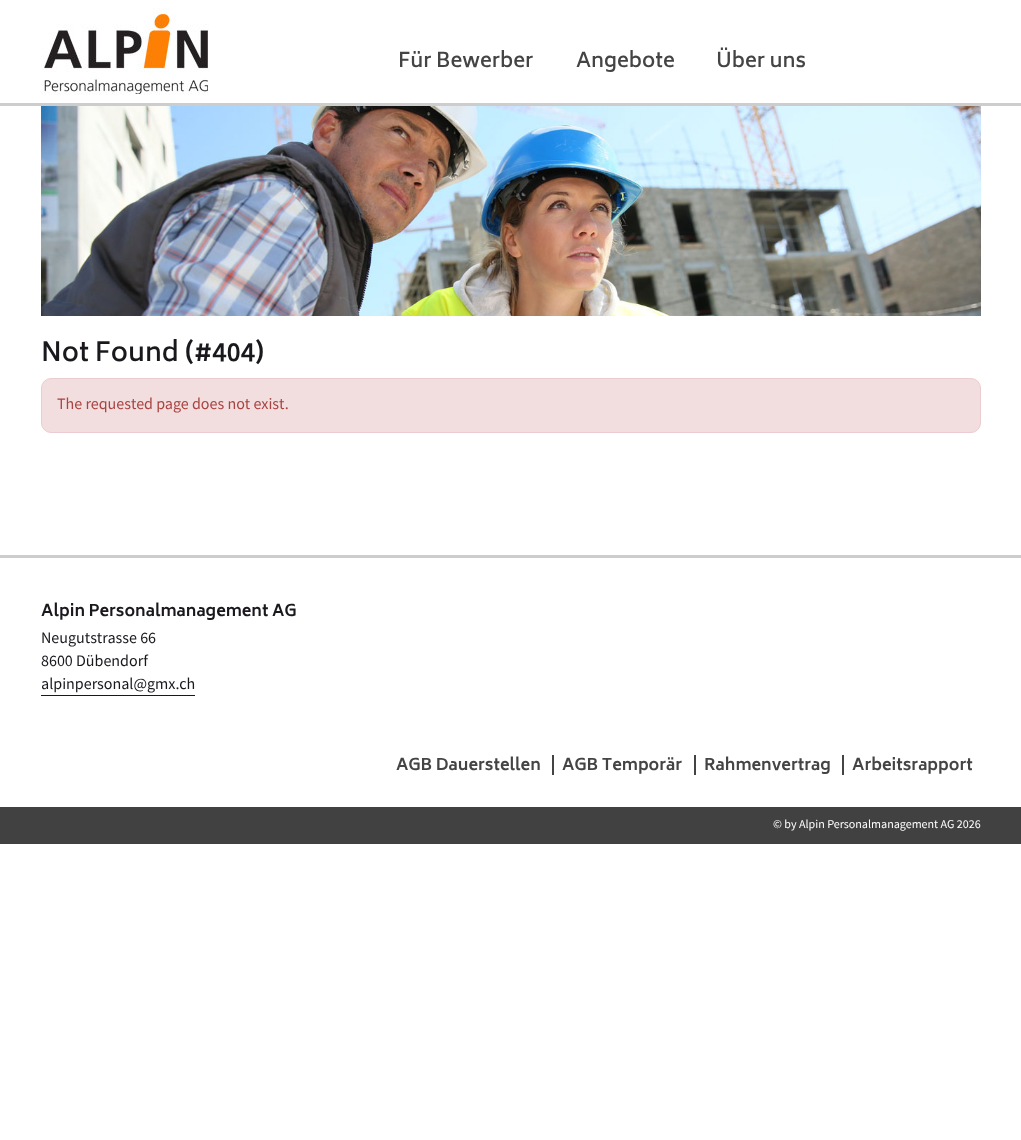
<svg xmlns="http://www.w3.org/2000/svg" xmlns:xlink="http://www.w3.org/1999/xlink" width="1021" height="1140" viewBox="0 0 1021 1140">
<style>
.cls-1{font:600 20px Biryani;fill:#444444}
.cls-2{font:600 26px Biryani;fill:#1a181d}
.cls-3{font:16px Source Sans Pro;fill:#a94442}
.cls-4{font:bold 16px Biryani;fill:#1a181d}
.cls-5{font:16px Source Sans Pro;fill:#1a181d}
.cls-6{font:bold 16px Biryani;fill:#444444}
.cls-7{font:12px Source Sans Pro;fill:#ffffff}
</style>
<rect width="100%" height="100%" fill="#ffffff"/>
<rect fill="#cdcdcd" x="0" y="103" width="1021" height="3"/>
<image xlink:href="image0.png" x="41" y="8" width="168" height="87"/>
<image xlink:href="image1.png" x="41" y="106" width="940" height="210"/>
<rect fill="#f2dede" stroke="#ebccd1" x="41.5" y="378.5" width="939" height="54" rx="9.5"/>
<rect fill="#cdcdcd" x="0" y="555" width="1021" height="3"/>
<rect fill="#1a181d" x="41" y="695" width="154" height="1"/>
<rect fill="#444444" x="552" y="755" width="2" height="20"/>
<rect fill="#444444" x="694" y="755" width="2" height="20"/>
<rect fill="#444444" x="842" y="755" width="2" height="20"/>
<rect fill="#414141" x="0" y="807" width="1021" height="37"/>
<text class="cls-1" x="398" y="67">Für Bewerber</text>
<text class="cls-1" x="576" y="67">Angebote</text>
<text class="cls-1" x="716" y="67">Über uns</text>
<text class="cls-2" x="41" y="361">Not Found (#404)</text>
<text class="cls-3" x="57" y="409">The requested page does not exist.</text>
<text class="cls-4" x="41" y="616">Alpin Personalmanagement AG</text>
<text class="cls-5"><tspan x="41" y="643">Neugutstrasse 66</tspan><tspan x="41" y="666">8600 Dübendorf</tspan><tspan x="41" y="689">alpinpersonal@gmx.ch</tspan></text>
<text class="cls-6" x="396" y="770">AGB Dauerstellen</text>
<text class="cls-6" x="562" y="770">AGB Temporär</text>
<text class="cls-6" x="704" y="770">Rahmenvertrag</text>
<text class="cls-6" x="852" y="770">Arbeitsrapport</text>
<text class="cls-7" x="773" y="828">© by Alpin Personalmanagement AG 2026</text>
</svg>
